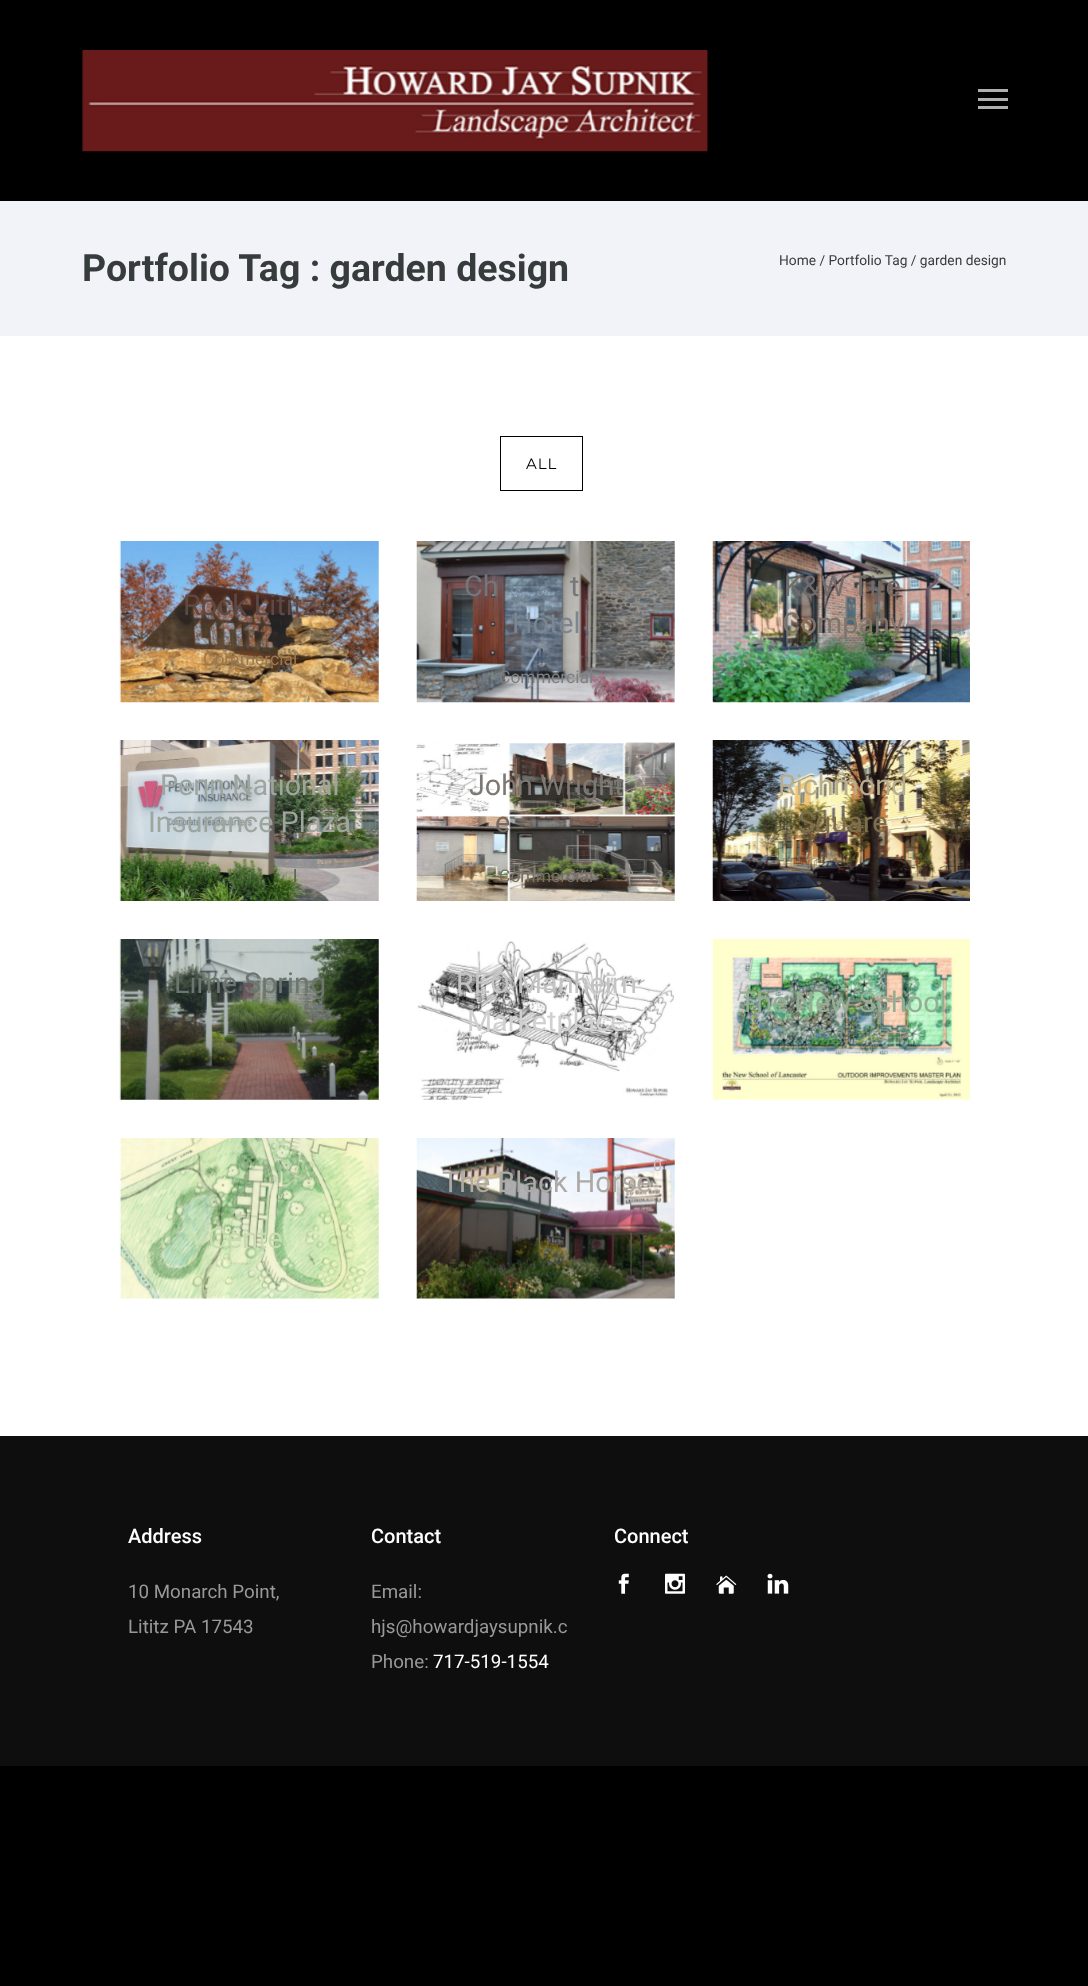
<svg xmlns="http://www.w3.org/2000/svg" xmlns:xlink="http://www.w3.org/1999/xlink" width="1088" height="1986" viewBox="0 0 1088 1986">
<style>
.cls-1{font:bold 37.5px Roboto;fill:#363c3b}
.cls-2{font:13.75px Roboto;fill:#363c3b}
.cls-3{font:100 15px Montserrat;letter-spacing:1px;fill:#000000}
.cls-4{font:28.75px Roboto;fill:#5e4944}
.cls-5{font:17.5px Roboto;fill:#9b774c}
.cls-6{font:28.75px Roboto;fill:#75767b}
.cls-7{font:28.75px Roboto;fill:#7c8690}
.cls-8{font:17.5px Roboto;fill:#7d7f83}
.cls-9{font:28.75px Roboto;fill:#726b69}
.cls-10{font:28.75px Roboto;fill:#7e746a}
.cls-11{font:28.75px Roboto;fill:#9ea59e}
.cls-12{font:17.5px Roboto;fill:#51673d}
.cls-13{font:28.75px Roboto;fill:#7d7873}
.cls-14{font:28.75px Roboto;fill:#756a62}
.cls-15{font:17.5px Roboto;fill:#767164}
.cls-16{font:28.75px Roboto;fill:#b7ad8e}
.cls-17{font:28.75px Roboto;fill:#7d6e4d}
.cls-18{font:28.75px Roboto;fill:#6c766e}
.cls-19{font:28.75px Roboto;fill:#c4c4c4}
.cls-20{font:28.75px Roboto;fill:#d0d0d0}
.cls-21{font:28.75px Roboto;fill:#93ae93}
.cls-22{font:16px Roboto;fill:#cfb9bd}
.cls-23{font:28.75px Roboto;fill:#adaaa6}
.cls-24{font:28.75px Roboto;fill:#c8dbb0}
.cls-25{font:500 20px Roboto;fill:#ffffff}
.cls-26{font:18.75px Roboto;fill:#999999}
.cls-27{font:18.75px Roboto;fill:#ffffff}
</style>
<rect width="100%" height="100%" fill="#000000"/>
<image xlink:href="image0.png" x="82" y="50" width="626" height="102"/>
<rect fill="#afafaf" x="978" y="89" width="30" height="3"/>
<rect fill="#afafaf" x="978" y="98" width="30" height="3"/>
<rect fill="#afafaf" x="978" y="106" width="30" height="3"/>
<rect fill="#f2f3f8" x="0" y="201" width="1088" height="135"/>
<rect fill="#ffffff" x="0" y="336" width="1088" height="1100"/>
<rect fill="none" stroke="#000000" x="500.5" y="436.5" width="82" height="54"/>
<image xlink:href="image1.png" x="119" y="541" width="260" height="162"/>
<image xlink:href="image2.png" x="416" y="541" width="259" height="162"/>
<image xlink:href="image3.png" x="712" y="541" width="258" height="162"/>
<image xlink:href="image4.png" x="119" y="740" width="260" height="161"/>
<image xlink:href="image5.png" x="416" y="742" width="259" height="159"/>
<image xlink:href="image6.png" x="712" y="740" width="258" height="161"/>
<image xlink:href="image7.png" x="119" y="939" width="260" height="161"/>
<image xlink:href="image8.png" x="417" y="941" width="257" height="159"/>
<image xlink:href="image9.png" x="712" y="939" width="258" height="161"/>
<image xlink:href="image10.png" x="416" y="1138" width="259" height="161"/>
<image xlink:href="image11.png" x="119" y="1138" width="260" height="161"/>
<rect fill="#0e0e0e" x="0" y="1436" width="1088" height="330"/>
<image xlink:href="image12.png" x="618" y="1573" width="11" height="21"/>
<image xlink:href="image13.png" x="665" y="1573" width="20" height="21"/>
<image xlink:href="image14.png" x="716" y="1575" width="21" height="19"/>
<image xlink:href="image15.png" x="767" y="1573" width="22" height="21"/>
<text class="cls-1" x="82" y="281">Portfolio Tag : garden design</text>
<text class="cls-2" x="779" y="265">Home / Portfolio Tag / garden design</text>
<text class="cls-3" x="526" y="469">ALL</text>
<text class="cls-4" x="183" y="615">Rock Lititz</text>
<text class="cls-5" x="203" y="665">Commercial</text>
<text class="cls-6" x="464" y="596">Ch</text>
<text class="cls-6" x="570" y="596">t</text>
<text class="cls-7" x="512" y="633">Hotel</text>
<text class="cls-8" x="499" y="683">Commercial</text>
<text class="cls-9" x="784" y="596">K&amp;W Tire</text>
<text class="cls-10" x="782" y="633">Company</text>
<text class="cls-11" x="160" y="795">Penn National</text>
<text class="cls-11" x="148" y="832">Insurance Plaza</text>
<text class="cls-12" x="293" y="882">l</text>
<text class="cls-13" x="469" y="795">John Wright</text>
<text class="cls-14" x="495" y="832">e</text>
<text class="cls-15" x="499" y="882">Commercial</text>
<text class="cls-16" x="778" y="795">Richmond</text>
<text class="cls-17" x="798" y="832">Square</text>
<text class="cls-18" x="174" y="993">Lime Spring</text>
<text class="cls-19" x="456" y="993">REO Manheim</text>
<text class="cls-20" x="467" y="1031">Marketplace</text>
<text class="cls-21" x="739" y="1012">The New School</text>
<text class="cls-22" x="653" y="1171">0</text>
<text class="cls-23" x="442" y="1192">The Black Horse</text>
<text class="cls-24" x="208" y="1248">Cente</text>
<text class="cls-25" x="128" y="1543">Address</text>
<text class="cls-26"><tspan x="128" y="1598">10 Monarch Point,</tspan><tspan x="128" y="1633">Lititz PA 17543</tspan></text>
<text class="cls-25" x="371" y="1543">Contact</text>
<text class="cls-26"><tspan x="371" y="1598">Email:</tspan><tspan x="371" y="1633">hjs@howardjaysupnik.c</tspan><tspan x="371" y="1668">Phone:</tspan></text>
<text class="cls-27" x="433" y="1668">717-519-1554</text>
<text class="cls-25" x="614" y="1543">Connect</text>
</svg>
